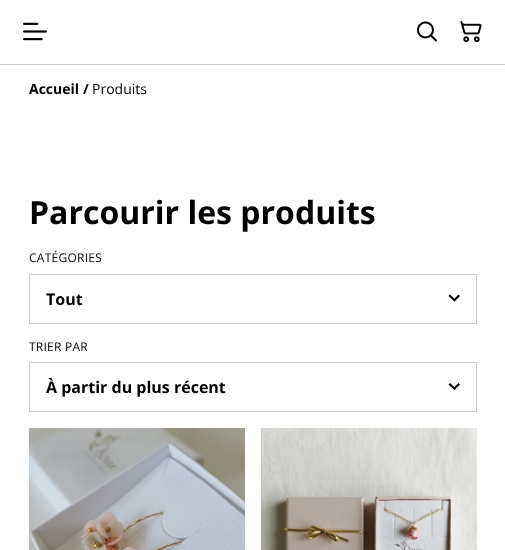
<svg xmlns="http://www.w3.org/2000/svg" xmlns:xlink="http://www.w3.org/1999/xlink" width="505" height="550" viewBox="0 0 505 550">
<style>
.cls-1{font:bold 14px Open Sans;fill:#000000}
.cls-2{font:14px Open Sans;fill:#000000}
.cls-3{font:bold 32px Open Sans;fill:#000000}
.cls-4{font:12px Open Sans;letter-spacing:0.25px;fill:#000000}
.cls-5{font:bold 16px Open Sans;fill:#000000}
</style>
<defs>
<clipPath id="clip1"><rect x="46" y="287" width="390" height="24"/></clipPath>
</defs>
<rect width="100%" height="100%" fill="#ffffff"/>
<rect fill="#cccccc" x="0" y="64" width="505" height="1"/>
<image xlink:href="image0.png" x="23" y="22" width="24" height="19"/>
<image xlink:href="image1.png" x="417" y="21" width="20" height="21"/>
<image xlink:href="image2.png" x="460" y="20" width="22" height="22"/>
<rect fill="none" stroke="#cccccc" x="29.5" y="274.5" width="447" height="49"/>
<path fill="#000000" d="M458.5 294.5L460 296L454.5 301.5L453 300Z"/>
<path fill="#000000" d="M450 294.5L455.5 300L454.5 301.5L448.5 296Z"/>
<rect fill="none" stroke="#cccccc" x="29.5" y="362.5" width="447" height="49"/>
<path fill="#000000" d="M458.5 383L460 384.5L454.5 390L453 388.5Z"/>
<path fill="#000000" d="M450 383L455.5 388.5L454.5 390L448.5 384.5Z"/>
<image xlink:href="image3.png" x="29" y="428" width="216" height="122"/>
<image xlink:href="image4.png" x="261" y="428" width="216" height="122"/>
<text class="cls-1" x="29" y="94">Accueil</text>
<text class="cls-1" x="83" y="94">/</text>
<text class="cls-2" x="92" y="94">Produits</text>
<text class="cls-3" x="29" y="224">Parcourir les produits</text>
<text class="cls-4" x="29" y="262">CATÉGORIES</text>
<g clip-path="url(#clip1)">
<text class="cls-5" x="46" y="305">Tout</text>
</g>
<text class="cls-4" x="29" y="351">TRIER PAR</text>
<text class="cls-5" x="46" y="393">À partir du plus récent</text>
</svg>
